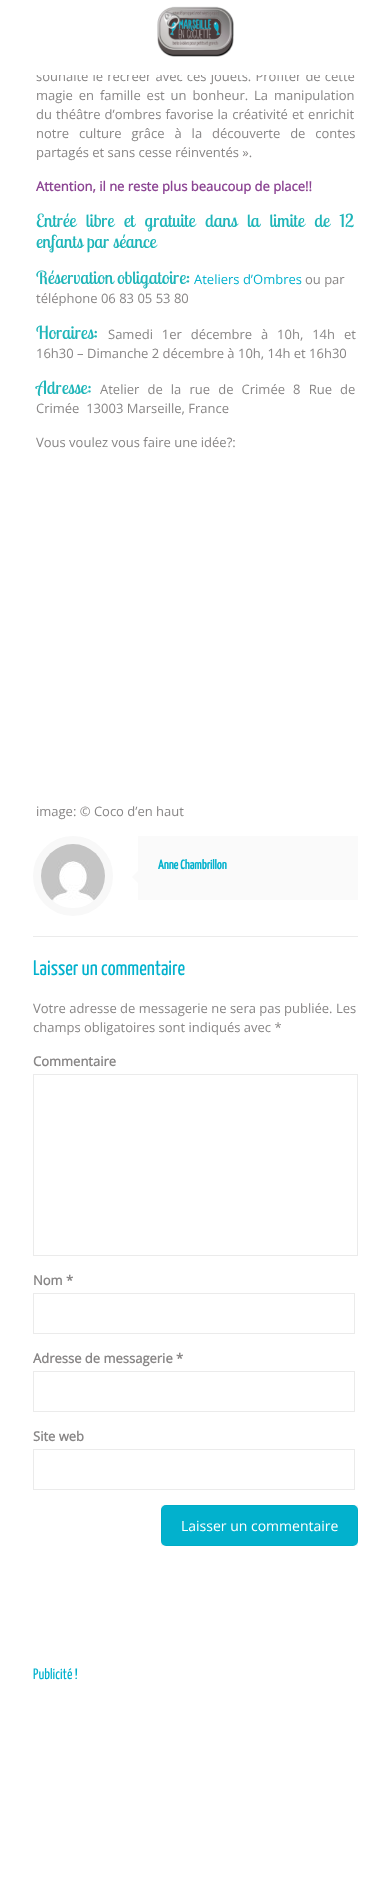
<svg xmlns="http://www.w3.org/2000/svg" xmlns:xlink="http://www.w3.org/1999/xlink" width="391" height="1881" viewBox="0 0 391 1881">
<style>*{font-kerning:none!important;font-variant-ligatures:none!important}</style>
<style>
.cls-1{font:13px Open Sans;fill:#888686}
.cls-2{font:bold 13px Open Sans;fill:#8c4593}
.cls-3{font:18px Lobster Two;fill:#1fb5b9}
.cls-4{font:13px Open Sans;fill:#02b1cd}
.cls-5{font:bold 13px Yanone Kaffeesatz;fill:#02b1cd}
.cls-6{font:200 21px Yanone Kaffeesatz;fill:#02b1cd}
.cls-7{font:bold 13px Open Sans;fill:#888686}
.cls-8{font:14px Open Sans;fill:#ffffff}
.cls-9{font:200 15px Yanone Kaffeesatz;fill:#02b1cd}
</style>
<rect width="100%" height="100%" fill="#ffffff"/>
<image xlink:href="image0.png" x="157" y="6" width="77" height="51"/>
<circle fill="none" stroke="#f8f8f8" stroke-width="8" cx="73" cy="876" r="36"/>
<image xlink:href="image1.png" x="41" y="844" width="64" height="57"/>
<rect fill="#fafafa" x="138" y="836" width="220" height="64"/>
<path fill="#fafafa" d="M138 871V883L132 877Z"/>
<rect fill="#ebebeb" x="33" y="936" width="325" height="1"/>
<rect fill="none" stroke="#ebebeb" x="33.5" y="1074.5" width="324" height="181"/>
<rect fill="none" stroke="#ebebeb" x="33.5" y="1293.5" width="321" height="40"/>
<rect fill="none" stroke="#ebebeb" x="33.5" y="1371.5" width="321" height="40"/>
<rect fill="none" stroke="#ebebeb" x="33.5" y="1449.5" width="321" height="40"/>
<rect fill="#02b1cd" x="161" y="1505" width="197" height="41" rx="5"/>
<rect fill="none" stroke="#000000" stroke-opacity="0.03" x="161.5" y="1505.5" width="196" height="40"/>
<text class="cls-1" x="36" y="81" word-spacing="0.75">souhaité le recréer avec ces jouets. Profiter de cette</text>
<rect fill="#ffffff" x="37" y="71" width="317" height="4"/>
<text class="cls-1"><tspan x="36" y="100" word-spacing="2.5">magie en famille est un bonheur. La manipulation</tspan><tspan x="36" y="119" word-spacing="0.75">du théâtre d’ombres favorise la créativité et enrichit</tspan><tspan x="36" y="138" word-spacing="6.5">notre culture grâce à la découverte de contes</tspan><tspan x="36" y="157">partagés et sans cesse réinventés ».</tspan></text>
<text class="cls-2" x="36" y="191">Attention, il ne reste plus beaucoup de place!!</text>
<text class="cls-3"><tspan x="36" y="227" word-spacing="6">Entrée libre et gratuite dans la limite de 12</tspan><tspan x="36" y="248">enfants par séance</tspan></text>
<text class="cls-3" x="36" y="284">Réservation obligatoire:</text>
<text class="cls-4" x="194" y="284">Ateliers d’Ombres</text>
<text class="cls-1" x="305" y="284">ou par</text>
<text class="cls-1" x="36" y="303">téléphone 06 83 05 53 80</text>
<text class="cls-3" x="36" y="339">Horaires:</text>
<text class="cls-1" x="108" y="339" word-spacing="5.5">Samedi 1er décembre à 10h, 14h et</text>
<text class="cls-1" x="36" y="358">16h30 – Dimanche 2 décembre à 10h, 14h et 16h30</text>
<text class="cls-3" x="36" y="394">Adresse:</text>
<text class="cls-1" x="100" y="394" word-spacing="4.75">Atelier de la rue de Crimée 8 Rue de</text>
<text class="cls-1" xml:space="preserve" x="36" y="413">Crimée  13003 Marseille, France</text>
<text class="cls-1" x="36" y="447">Vous voulez vous faire une idée?:</text>
<text class="cls-1" x="36" y="816">image: © Coco d’en haut</text>
<text class="cls-5" x="158" y="869">Anne Chambrillon</text>
<text class="cls-6" x="33" y="975">Laisser un commentaire</text>
<text class="cls-1"><tspan x="33" y="1013">Votre adresse de messagerie ne sera pas publiée. Les</tspan><tspan x="33" y="1032">champs obligatoires sont indiqués avec *</tspan></text>
<text class="cls-7" x="33" y="1066">Commentaire</text>
<text class="cls-7" x="33" y="1285">Nom *</text>
<text class="cls-7" x="33" y="1363">Adresse de messagerie *</text>
<text class="cls-7" x="33" y="1441">Site web</text>
<text class="cls-8" x="181" y="1531">Laisser un commentaire</text>
<text class="cls-9" x="33" y="1679">Publicité !</text>
</svg>
